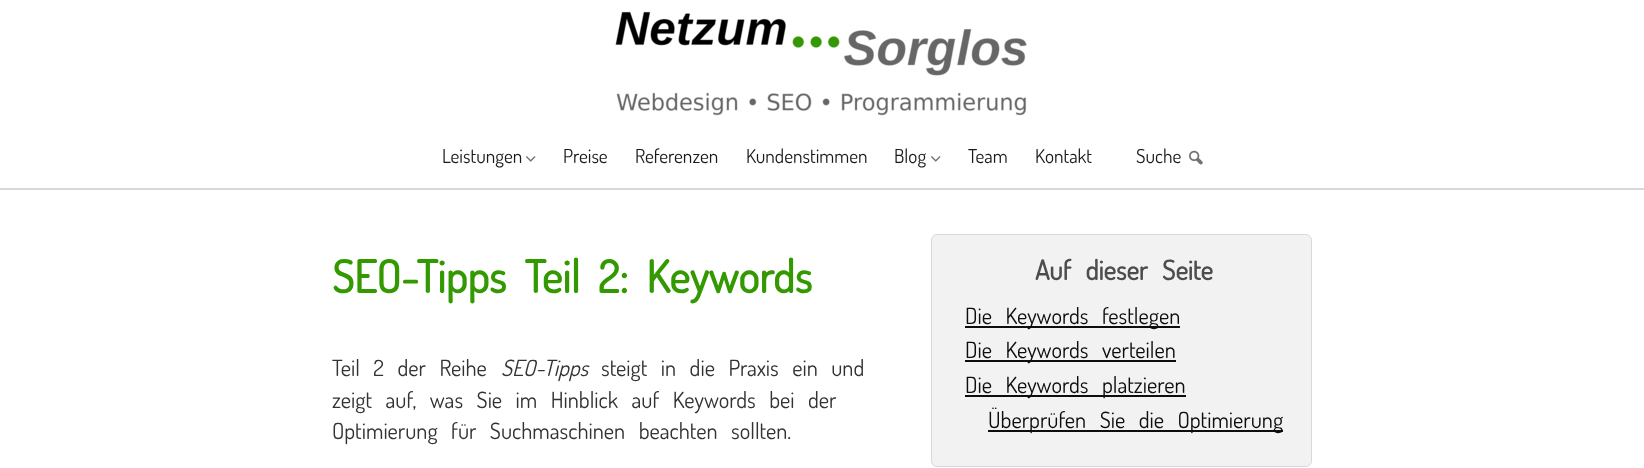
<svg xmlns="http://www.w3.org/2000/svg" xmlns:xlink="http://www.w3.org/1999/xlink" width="1644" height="468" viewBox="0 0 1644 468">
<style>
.cls-1{font:19.25px Dosis;fill:#1a1a1a}
.cls-2{font:bold 44.75px Dosis;fill:#339900}
.cls-3{font:22.4px Dosis;fill:#333333}
.cls-4{font:italic 22.4px Dosis;fill:#333333}
.cls-5{font:bold 27px Dosis;fill:#4d4d4d}
.cls-6{font:22.4px Dosis;fill:#0d0d0d}
</style>
<rect width="100%" height="100%" fill="#ffffff"/>
<rect fill="#d9d9d9" x="0" y="188" width="1644" height="2"/>
<image xlink:href="image0.png" x="615" y="11" width="412" height="105"/>
<image xlink:href="image1.png" x="526" y="156" width="10" height="6"/>
<image xlink:href="image1.png" x="931" y="156" width="10" height="6"/>
<image xlink:href="image2.png" x="1189" y="150" width="14" height="15"/>
<rect fill="#f2f2f2" stroke="#d9d9d9" x="931.5" y="234.5" width="380" height="232" rx="5.5"/>
<rect fill="#0d0d0d" x="965" y="326" width="215" height="2"/>
<rect fill="#0d0d0d" x="965" y="360" width="211" height="2"/>
<rect fill="#0d0d0d" x="965" y="395" width="221" height="2"/>
<rect fill="#0d0d0d" x="988" y="430" width="295" height="2"/>
<text class="cls-1" x="442" y="163">Leistungen</text>
<text class="cls-1" x="563" y="163">Preise</text>
<text class="cls-1" x="635" y="163">Referenzen</text>
<text class="cls-1" x="746" y="163">Kundenstimmen</text>
<text class="cls-1" x="894" y="163">Blog</text>
<text class="cls-1" x="968" y="163">Team</text>
<text class="cls-1" x="1035" y="163">Kontakt</text>
<text class="cls-1" x="1136" y="163">Suche</text>
<text class="cls-2" x="332" y="293" word-spacing="9">SEO-Tipps Teil 2: Keywords</text>
<text class="cls-3" x="332" y="376" word-spacing="9">Teil 2 der Reihe</text>
<text class="cls-4" x="501" y="376">SEO-Tipps</text>
<text class="cls-3" x="601" y="376" word-spacing="9">steigt in die Praxis ein und</text>
<text class="cls-3"><tspan x="332" y="408" word-spacing="9">zeigt auf, was Sie im Hinblick auf Keywords bei der</tspan><tspan x="332" y="439" word-spacing="9">Optimierung für Suchmaschinen beachten sollten.</tspan></text>
<text class="cls-5" x="1035" y="280" word-spacing="9">Auf dieser Seite</text>
<text class="cls-6"><tspan x="965" y="324" word-spacing="9">Die Keywords festlegen</tspan><tspan x="965" y="358" word-spacing="9">Die Keywords verteilen</tspan><tspan x="965" y="393" word-spacing="9">Die Keywords platzieren</tspan></text>
<text class="cls-6" x="988" y="428" word-spacing="9">Überprüfen Sie die Optimierung</text>
</svg>
